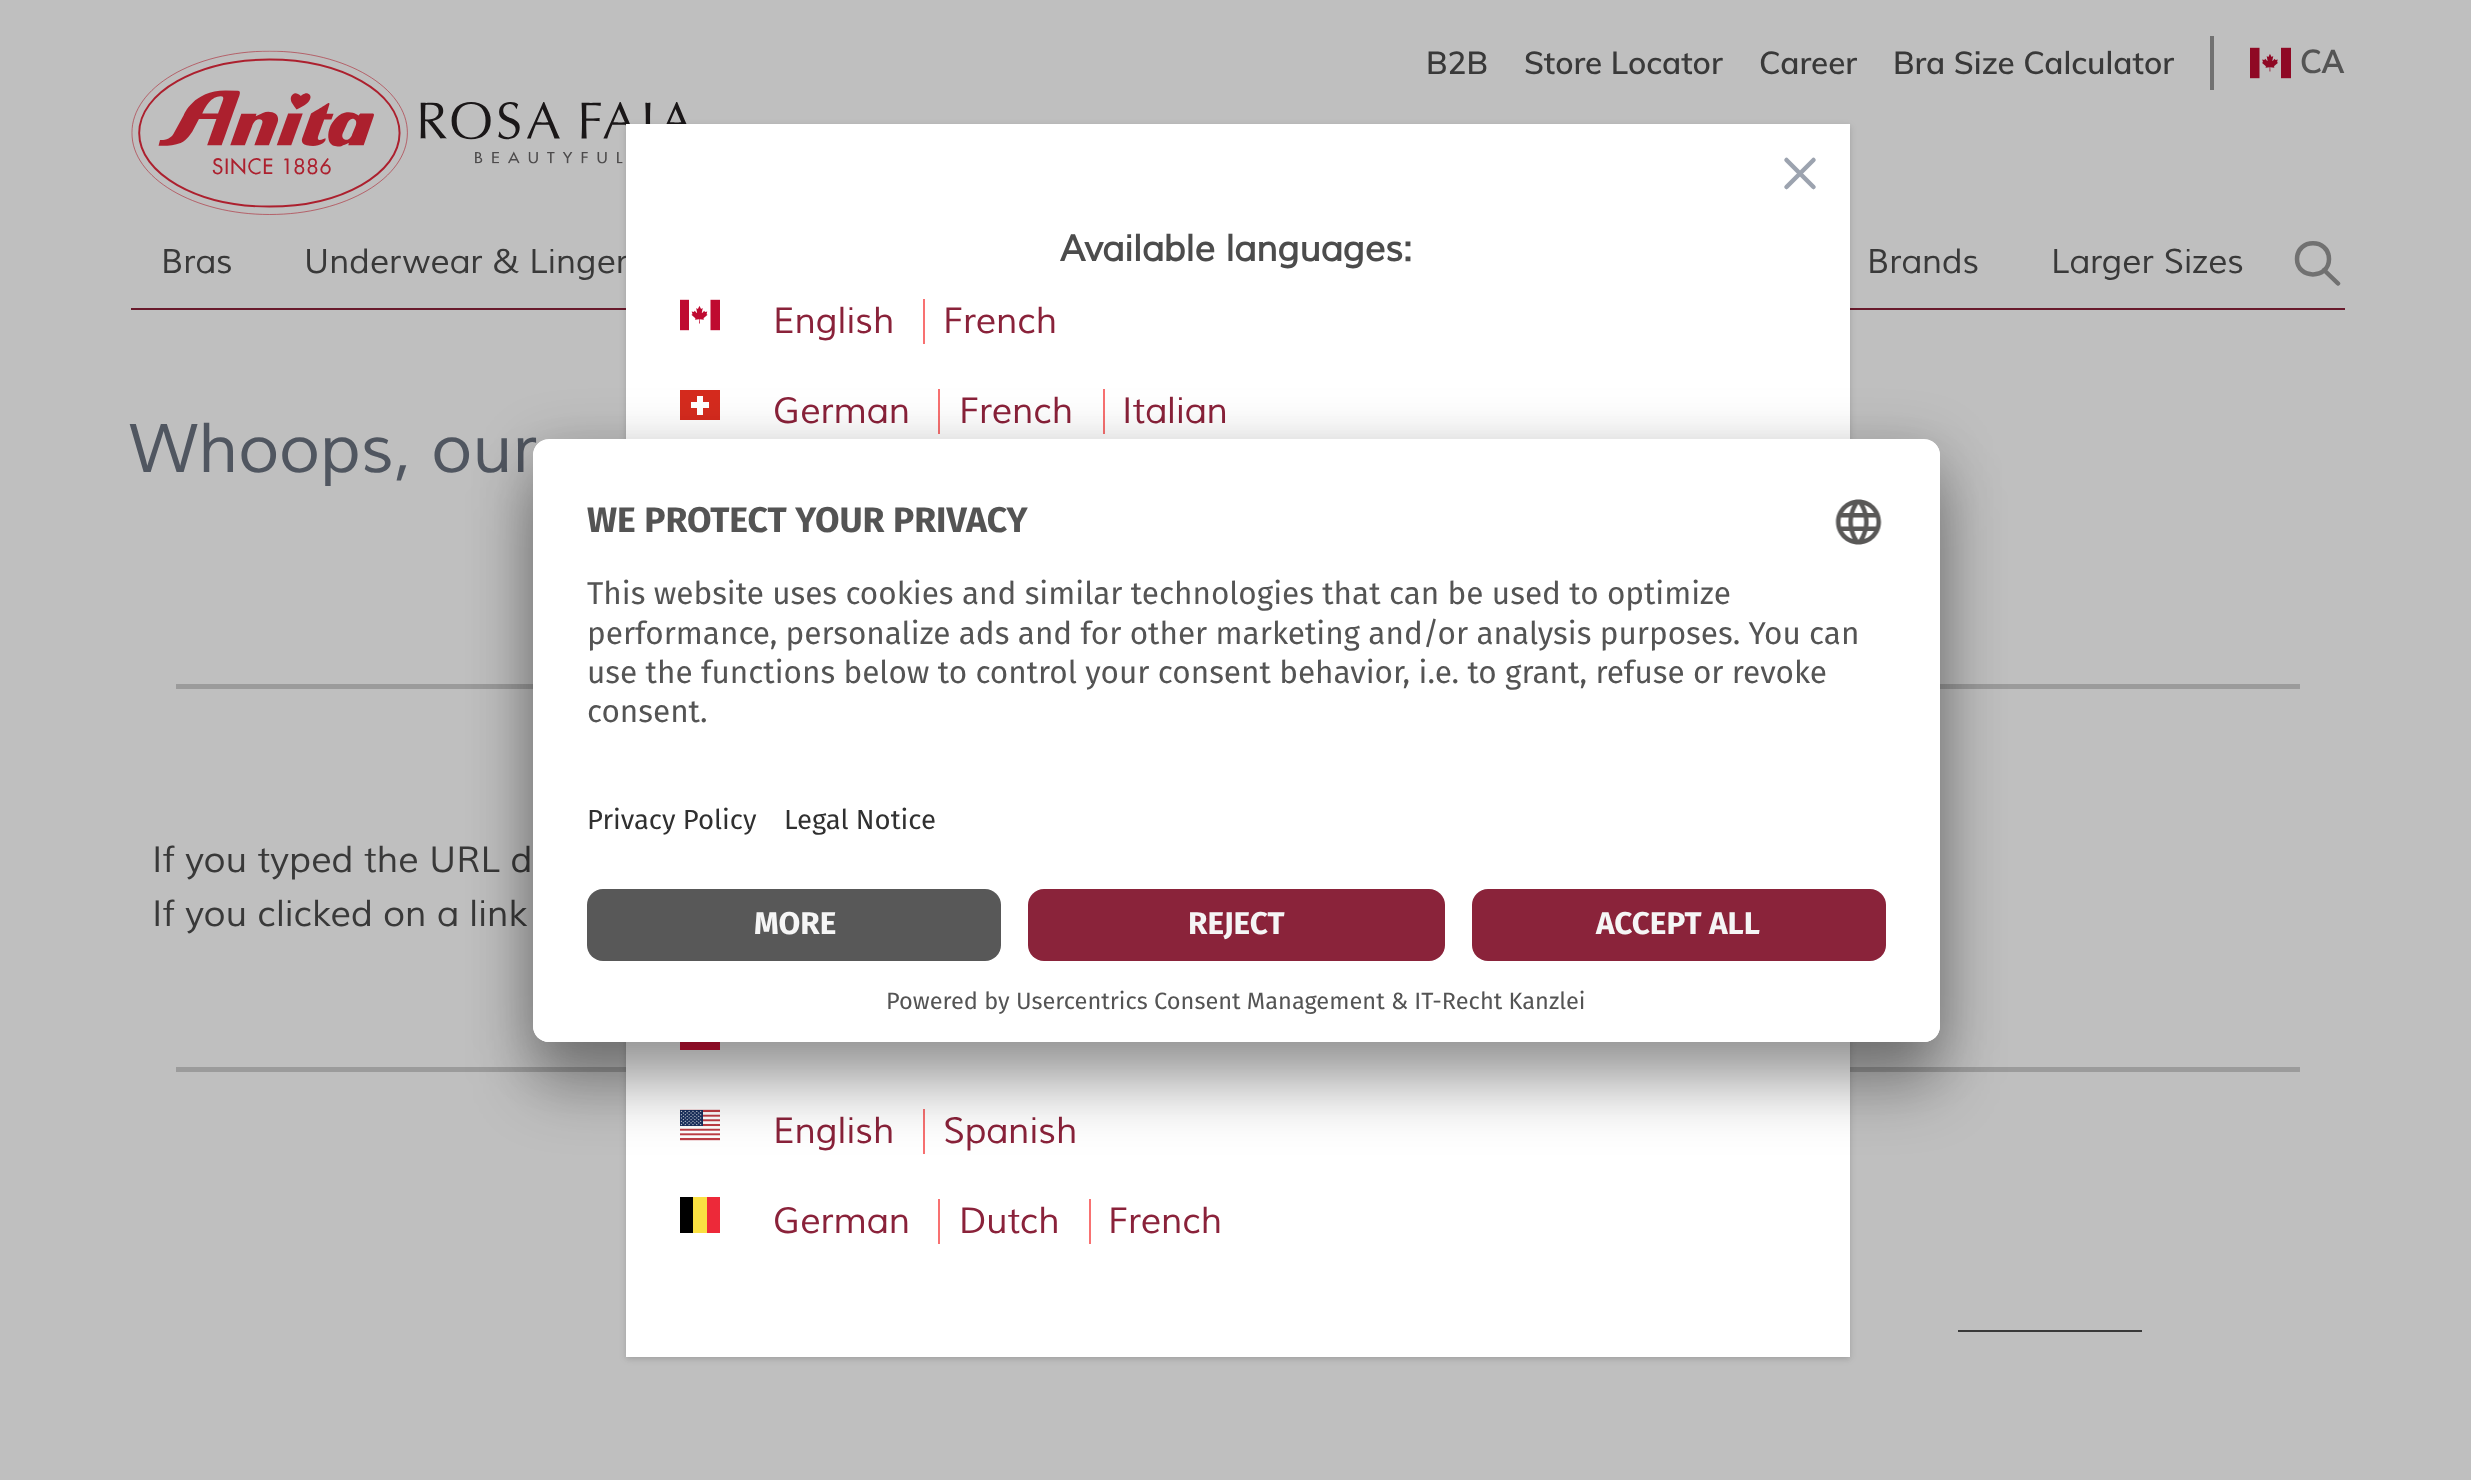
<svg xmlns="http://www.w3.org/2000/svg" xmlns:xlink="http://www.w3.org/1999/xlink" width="2471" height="1480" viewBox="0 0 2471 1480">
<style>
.cls-1{font:600 31.5px Muli;fill:#393939}
.cls-2{font:italic bold 31.5px Muli;fill:#545454}
.cls-3{font:italic 33.75px Muli;fill:#393939}
.cls-4{font:italic 36px Muli;fill:#393939}
.cls-5{font:italic bold 36px Muli;fill:#4c4c4c}
.cls-6{font:italic 36px Muli;fill:#8a223a}
.cls-7{font:italic 67.5px Muli;fill:#505660}
.cls-8{font:bold 35.5px Fira Sans;fill:#545454}
.cls-9{font:31.5px Fira Sans;fill:#545454}
.cls-10{font:27.5px Fira Sans;fill:#303030}
.cls-11{font:bold 31.5px Fira Sans;fill:#f5f5f5}
.cls-12{font:23.6px Fira Sans;fill:#545454}
</style>
<defs>
<clipPath id="clip1"><rect x="533" y="439" width="1407" height="603" rx="16"/></clipPath>
<clipPath id="clip2"><path d="M549 439H1924C1933 439 1940 446 1940 455V871H533V455C533 446 540 439 549 439Z"/></clipPath>
</defs>
<rect width="100%" height="100%" fill="#bfbfbf"/>
<rect fill="#717171" x="2210" y="36" width="4" height="54"/>
<image xlink:href="image0.png" x="2250" y="47" width="41" height="32"/>
<rect fill="#681a2c" x="131" y="308" width="2214" height="2"/>
<image xlink:href="image1.png" x="131" y="50" width="556" height="165"/>
<path fill="none" stroke="#717171" stroke-width="4.5" stroke-linecap="round" stroke-linejoin="round" d="M2338 283.5L2324 270M2329 259C2329 279.5 2297 279.5 2297 259C2297 238 2329 238 2329 259Z"/>
<rect fill="#9b9b9b" x="176" y="684" width="2124" height="5"/>
<rect fill="#9b9b9b" x="176" y="1067" width="2124" height="5"/>
<rect fill="#000000" fill-opacity="0.06" filter="blur(2px)" x="626" y="126" width="1224" height="1233"/>
<rect fill="#000000" fill-opacity="0.1" filter="blur(3.5px)" x="626" y="126" width="1224" height="1233"/>
<rect fill="#393939" x="1958" y="1330" width="184" height="2"/>
<text class="cls-1" x="1426" y="74">B2B</text>
<text class="cls-1" x="1524" y="74">Store Locator</text>
<text class="cls-1" x="1759" y="74">Career</text>
<text class="cls-1" x="1893" y="74">Bra Size Calculator</text>
<text class="cls-2" x="2300" y="73">CA</text>
<text class="cls-3" x="161" y="273">Bras</text>
<text class="cls-3" x="304" y="273">Underwear &amp; Linger</text>
<text class="cls-3" x="1867" y="273">Brands</text>
<text class="cls-3" x="2051" y="273">Larger Sizes</text>
<text class="cls-4"><tspan x="152" y="872">If you typed the URL d</tspan><tspan x="152" y="926">If you clicked on a link</tspan></text>
<rect fill="#ffffff" x="626" y="124" width="1224" height="1233"/>
<path fill="none" stroke="#9ca3af" stroke-width="4.5" stroke-linecap="round" stroke-linejoin="round" d="M1786.5 187L1813.5 160M1786.5 160L1813.5 187"/>
<text class="cls-5" x="1060" y="261">Available languages:</text>
<image xlink:href="image2.png" x="680" y="299" width="40" height="32"/>
<text class="cls-6" x="773" y="333">English</text>
<rect fill="#f87171" x="923" y="299" width="2" height="45"/>
<text class="cls-6" x="943" y="333">French</text>
<rect fill="#d52b1e" x="680" y="390" width="40" height="30"/>
<rect fill="#ffffff" x="691" y="402" width="18" height="6"/>
<rect fill="#ffffff" x="697" y="396" width="6" height="19"/>
<text class="cls-6" x="773" y="423">German</text>
<rect fill="#f87171" x="938" y="389" width="2" height="45"/>
<text class="cls-6" x="959" y="423">French</text>
<rect fill="#f87171" x="1103" y="389" width="2" height="45"/>
<text class="cls-6" x="1122" y="423">Italian</text>
<rect fill="#dc143c" x="680" y="1042" width="40" height="8"/>
<image xlink:href="image3.png" x="680" y="1109" width="40" height="32"/>
<text class="cls-6" x="773" y="1143">English</text>
<rect fill="#f87171" x="923" y="1109" width="2" height="45"/>
<text class="cls-6" x="943" y="1143">Spanish</text>
<rect fill="#ed2939" x="707" y="1197" width="13" height="36"/>
<rect fill="#fae042" x="693" y="1197" width="14" height="36"/>
<rect fill="#000000" x="680" y="1197" width="13" height="36"/>
<text class="cls-6" x="773" y="1233">German</text>
<rect fill="#f87171" x="938" y="1199" width="2" height="45"/>
<text class="cls-6" x="959" y="1233">Dutch</text>
<rect fill="#f87171" x="1089" y="1199" width="2" height="45"/>
<text class="cls-6" x="1108" y="1233">French</text>
<text class="cls-7" x="129" y="472">Whoops, our</text>
<rect fill="#000000" fill-opacity="0.3" filter="blur(31.5px)" x="533" y="484" width="1407" height="603" rx="16"/>
<rect fill="#000000" fill-opacity="0.22" filter="blur(29px)" x="533" y="450" width="1407" height="603" rx="16"/>
<rect fill="#ffffff" x="533" y="439" width="1407" height="603" rx="16"/>
<g clip-path="url(#clip1)">
<g clip-path="url(#clip2)">
<rect fill="#ffffff" x="533" y="441" width="1407" height="430"/>
</g>
</g>
<text class="cls-8" x="587" y="532">WE PROTECT YOUR PRIVACY</text>
<image xlink:href="image4.png" x="1835" y="499" width="47" height="46"/>
<text class="cls-9"><tspan x="587" y="604">This website uses cookies and similar technologies that can be used to optimize</tspan><tspan x="587" y="644">performance, personalize ads and for other marketing and/or analysis purposes. You can</tspan><tspan x="587" y="683">use the functions below to control your consent behavior, i.e. to grant, refuse or revoke</tspan><tspan x="587" y="722">consent.</tspan></text>
<text class="cls-10" x="587" y="829">Privacy Policy</text>
<text class="cls-10" x="784" y="829">Legal Notice</text>
<path fill="#ffffff" d="M533 871H1940V1026C1940 1035 1933 1042 1924 1042H549C540 1042 533 1035 533 1026Z"/>
<rect fill="#585858" x="587" y="889" width="414" height="72" rx="16"/>
<text class="cls-11" x="754" y="934">MORE</text>
<rect fill="#8a233a" x="1028" y="889" width="417" height="72" rx="16"/>
<text class="cls-11" x="1188" y="934">REJECT</text>
<rect fill="#8a233a" x="1472" y="889" width="414" height="72" rx="16"/>
<text class="cls-11" x="1596" y="934">ACCEPT ALL</text>
<text class="cls-12" x="886" y="1009">Powered by Usercentrics Consent Management &amp; IT-Recht Kanzlei</text>
</svg>
